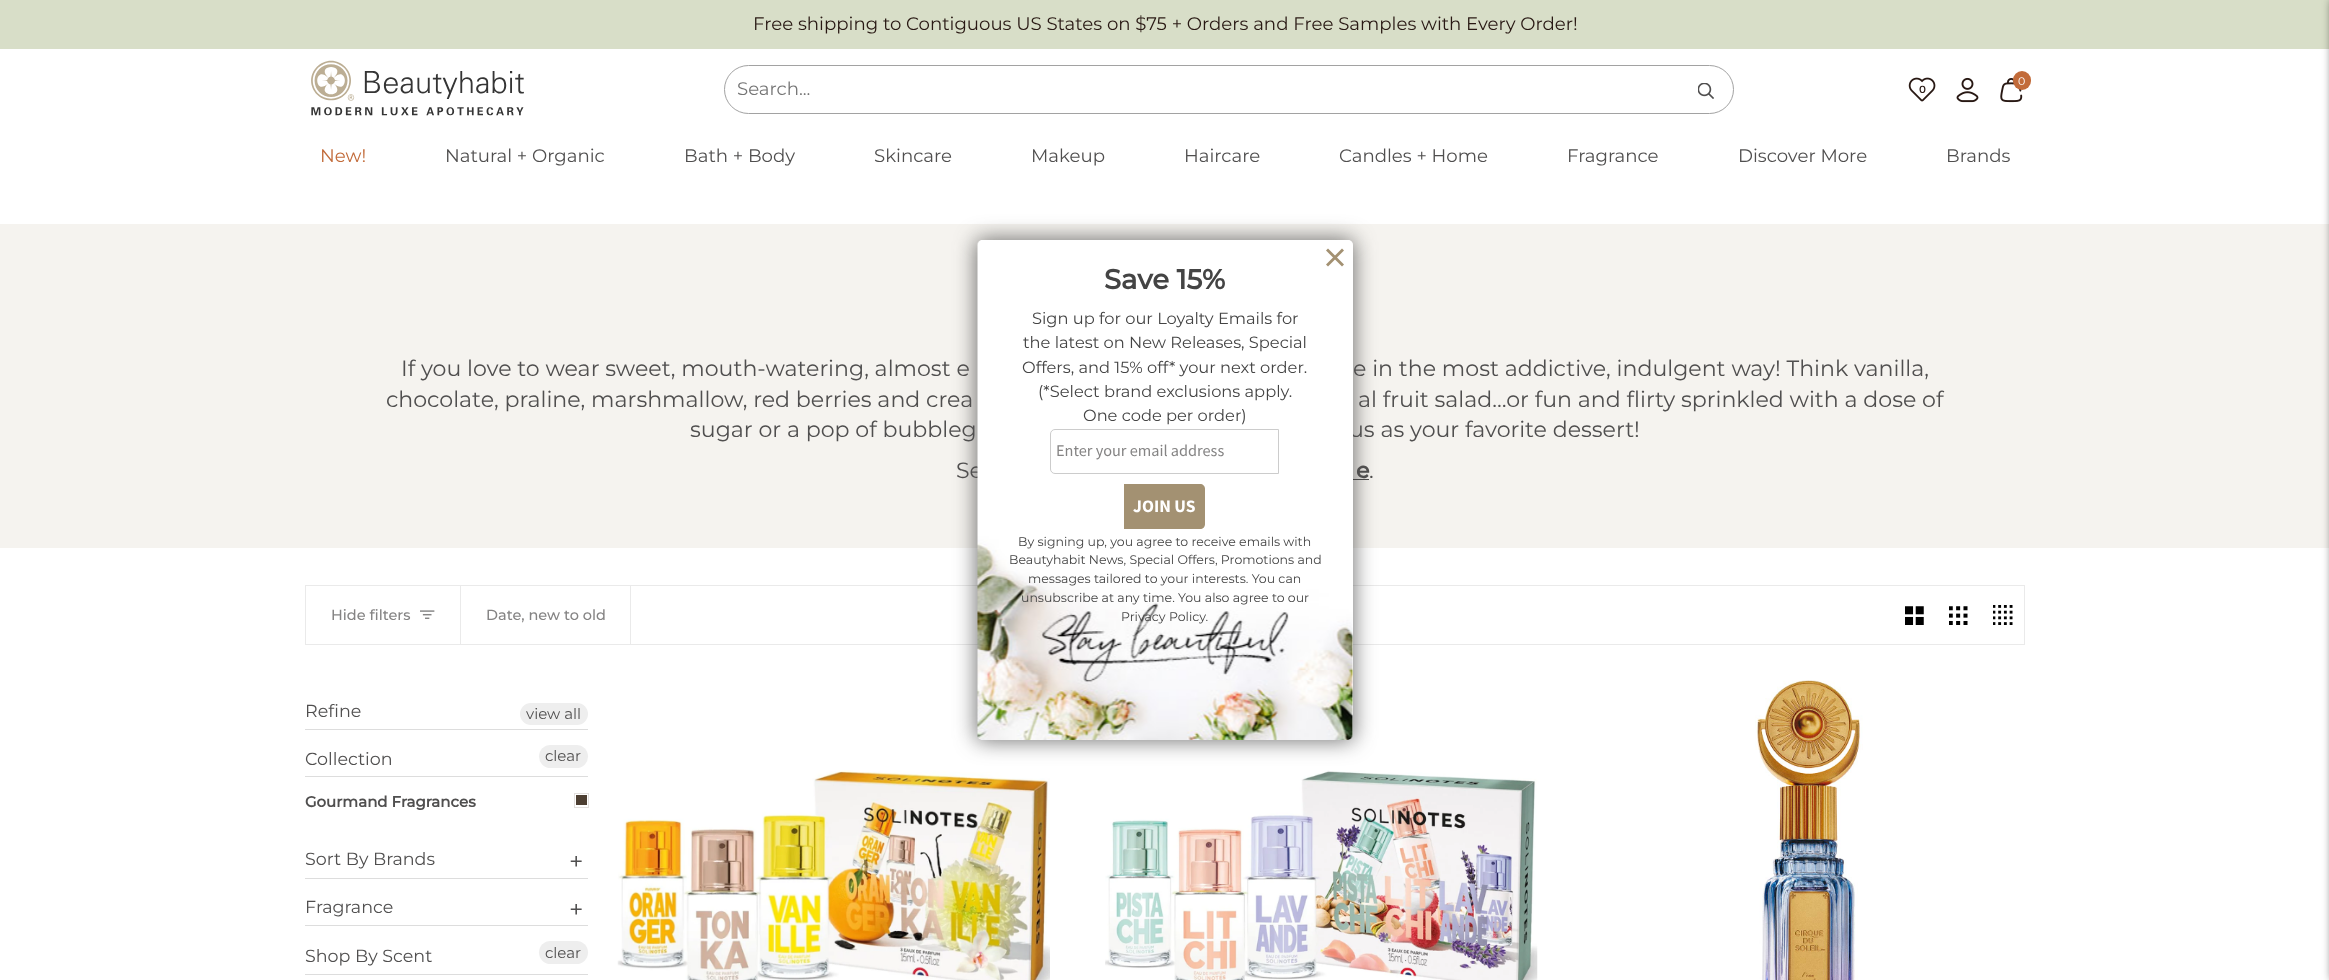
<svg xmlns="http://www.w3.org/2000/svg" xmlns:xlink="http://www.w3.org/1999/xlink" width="2329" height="980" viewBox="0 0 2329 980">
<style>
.cls-1{font:18.15px Montserrat;fill:#281813}
.cls-2{font:18.15px Montserrat;fill:#757575}
.cls-3{font:11px Montserrat;fill:#ffffff}
.cls-4{font:bold 10px Montserrat;fill:#281813}
.cls-5{font:18.15px Montserrat;fill:#c26b3a}
.cls-6{font:18.15px Montserrat;fill:#504f4f}
.cls-7{font:22.1px Montserrat;fill:#504f4f}
.cls-8{font:bold 17.5px Source Sans Pro;fill:#ffffff}
.cls-9{font:12.5px Montserrat;fill:#444444}
.cls-10{font:16.25px Source Sans Pro;fill:#858484}
.cls-11{font:16.25px Montserrat;fill:#444444}
.cls-12{font:bold 27.5px Montserrat;fill:#444444}
.cls-13{font:bold 22.1px Montserrat;fill:#504f4f}
.cls-14{font:500 14.5px Montserrat;fill:#858484}
.cls-15{font:17.5px Montserrat;fill:#504f4f}
.cls-16{font:15px Montserrat;fill:#504f4f}
.cls-17{font:bold 15px Montserrat;fill:#504f4f}
.cls-18{font:25px Montserrat;fill:#504f4f}
</style>
<rect width="100%" height="100%" fill="#ffffff"/>
<rect fill="#d8dec8" x="0" y="0" width="2329" height="49"/>
<rect fill="#f5f3ef" x="0" y="224" width="2329" height="324"/>
<rect fill="#000000" fill-opacity="0.5" filter="blur(4.5px)" x="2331" y="0" width="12" height="980"/>
<image xlink:href="image0.png" x="311" y="60" width="213" height="56"/>
<rect fill="none" stroke="#a2a2a2" x="724.5" y="65.5" width="1009" height="48" rx="24"/>
<image xlink:href="image1.png" x="1698" y="83" width="16" height="16"/>
<image xlink:href="image2.png" x="1956" y="77" width="23" height="26"/>
<image xlink:href="image3.png" x="2000" y="78" width="23" height="25"/>
<rect fill="#c26b3a" x="2013" y="71" width="18" height="19" rx="9"/>
<image xlink:href="image4.png" x="1908" y="77" width="28" height="25"/>
<rect fill="#504f4f" x="1353" y="479" width="16" height="1"/>
<rect fill="none" stroke="#eaeaea" x="305.5" y="585.5" width="1719" height="59"/>
<image xlink:href="image10.png" x="617" y="770" width="433" height="210"/>
<image xlink:href="image11.png" x="1105" y="770" width="433" height="210"/>
<rect fill="#323232" fill-opacity="0.69" filter="blur(10.5px)" x="976" y="239" width="378" height="502" rx="6"/>
<rect fill="#eaeaea" x="460" y="586" width="1" height="58"/>
<image xlink:href="image6.png" x="420" y="610" width="15" height="9"/>
<rect fill="#eaeaea" x="630" y="586" width="1" height="58"/>
<image xlink:href="image7.png" x="1905" y="606" width="19" height="19"/>
<image xlink:href="image8.png" x="1949" y="606" width="19" height="19"/>
<image xlink:href="image9.png" x="1993" y="605" width="20" height="20"/>
<rect fill="#dddddd" x="305" y="729" width="283" height="1"/>
<rect fill="#eeeeee" x="520" y="703" width="68" height="22" rx="11"/>
<rect fill="#dddddd" x="305" y="776" width="283" height="1"/>
<rect fill="#eeeeee" x="539" y="745" width="49" height="23" rx="11.5"/>
<rect fill="#4d3f32" x="576" y="795" width="11" height="10"/>
<rect fill="none" stroke="#e3e0de" x="574.5" y="793.5" width="14" height="14"/>
<rect fill="#dddddd" x="305" y="878" width="283" height="1"/>
<rect fill="#dddddd" x="305" y="925" width="283" height="1"/>
<rect fill="#dddddd" x="305" y="974" width="283" height="1"/>
<rect fill="#eeeeee" x="539" y="941" width="49" height="23" rx="11.5"/>
<image xlink:href="image12.png" x="1755" y="680" width="108" height="300"/>
<text class="cls-1" x="753" y="30">Free shipping to Contiguous US States on $75 + Orders and Free Samples with Every Order!</text>
<text class="cls-2" x="737" y="95">Search...</text>
<text class="cls-3" x="2018" y="85">0</text>
<text class="cls-4" x="1919" y="93">0</text>
<text class="cls-5" x="320" y="162">New!</text>
<text class="cls-6" x="445" y="162">Natural + Organic</text>
<text class="cls-6" x="684" y="162">Bath + Body</text>
<text class="cls-6" x="874" y="162">Skincare</text>
<text class="cls-6" x="1031" y="162">Makeup</text>
<text class="cls-6" x="1184" y="162">Haircare</text>
<text class="cls-6" x="1339" y="162">Candles + Home</text>
<text class="cls-6" x="1567" y="162">Fragrance</text>
<text class="cls-6" x="1738" y="162">Discover More</text>
<text class="cls-6" x="1946" y="162">Brands</text>
<text class="cls-7" x="401" y="376">If you love to wear sweet, mouth-watering, almost e</text>
<text class="cls-7" x="1353" y="376">e in the most addictive, indulgent way! Think vanilla,</text>
<text class="cls-7" x="386" y="407">chocolate, praline, marshmallow, red berries and crea</text>
<text class="cls-7" x="1358" y="407">al fruit salad…or fun and flirty sprinkled with a dose of</text>
<text class="cls-7" x="690" y="437">sugar or a pop of bubbleg</text>
<text class="cls-7" x="1349" y="437">us as your favorite dessert!</text>
<text class="cls-7" x="956" y="478">Se</text>
<rect fill="#ffffff" x="978" y="240" width="375" height="500" rx="5"/>
<image xlink:href="image5.png" x="977" y="240" width="376" height="500"/>
<path fill="#a39172" d="M1124 484H1200C1203 484 1205 486 1205 489V524C1205 527 1203 529 1200 529H1124Z"/>
<text class="cls-8" x="1133" y="512">JOIN US</text>
<text class="cls-9" x="1121" y="621">Privacy Policy.</text>
<text class="cls-9" x="1021" y="602">unsubscribe at any time. You also agree to our</text>
<text class="cls-9" x="1028" y="583">messages tailored to your interests. You can</text>
<text class="cls-9" x="1009" y="564">Beautyhabit News, Special Offers, Promotions and</text>
<text class="cls-9" x="1018" y="546">By signing up, you agree to receive emails with</text>
<path fill="none" stroke="#cccccc" d="M1055 429.5H1278.5V473.5H1055C1052.5 473.5 1050.5 471.5 1050.5 469V434C1050.5 431.5 1052.5 429.5 1055 429.5Z"/>
<text class="cls-10" x="1056" y="456">Enter your email address</text>
<text class="cls-11" x="1083" y="421">One code per order)</text>
<text class="cls-11" x="1038" y="397">(*Select brand exclusions apply.</text>
<text class="cls-11" x="1022" y="373">Offers, and 15% off* your next order.</text>
<text class="cls-11" x="1023" y="348">the latest on New Releases, Special</text>
<text class="cls-11" x="1032" y="324">Sign up for our Loyalty Emails for</text>
<text class="cls-12" x="1104" y="289">Save 15%</text>
<path fill="#a39172" d="M1328 248.5L1344 264.5L1342 266.5L1326 250.5Z"/>
<path fill="#a39172" d="M1326 264.5L1342 248.5L1344 250.5L1328 266.5Z"/>
<text class="cls-13" x="1356" y="478">e</text>
<text class="cls-7" x="1369" y="478">.</text>
<text class="cls-14" x="331" y="620">Hide filters</text>
<text class="cls-14" x="486" y="620">Date, new to old</text>
<text class="cls-15" x="305" y="717">Refine</text>
<text class="cls-16" x="526" y="719">view all</text>
<text class="cls-15" x="305" y="765">Collection</text>
<text class="cls-16" x="545" y="761">clear</text>
<text class="cls-17" x="305" y="807">Gourmand Fragrances</text>
<text class="cls-15" x="305" y="865">Sort By Brands</text>
<text class="cls-18" x="569" y="870">+</text>
<text class="cls-15" x="305" y="913">Fragrance</text>
<text class="cls-18" x="569" y="918">+</text>
<text class="cls-15" x="305" y="962">Shop By Scent</text>
<text class="cls-16" x="545" y="958">clear</text>
</svg>
